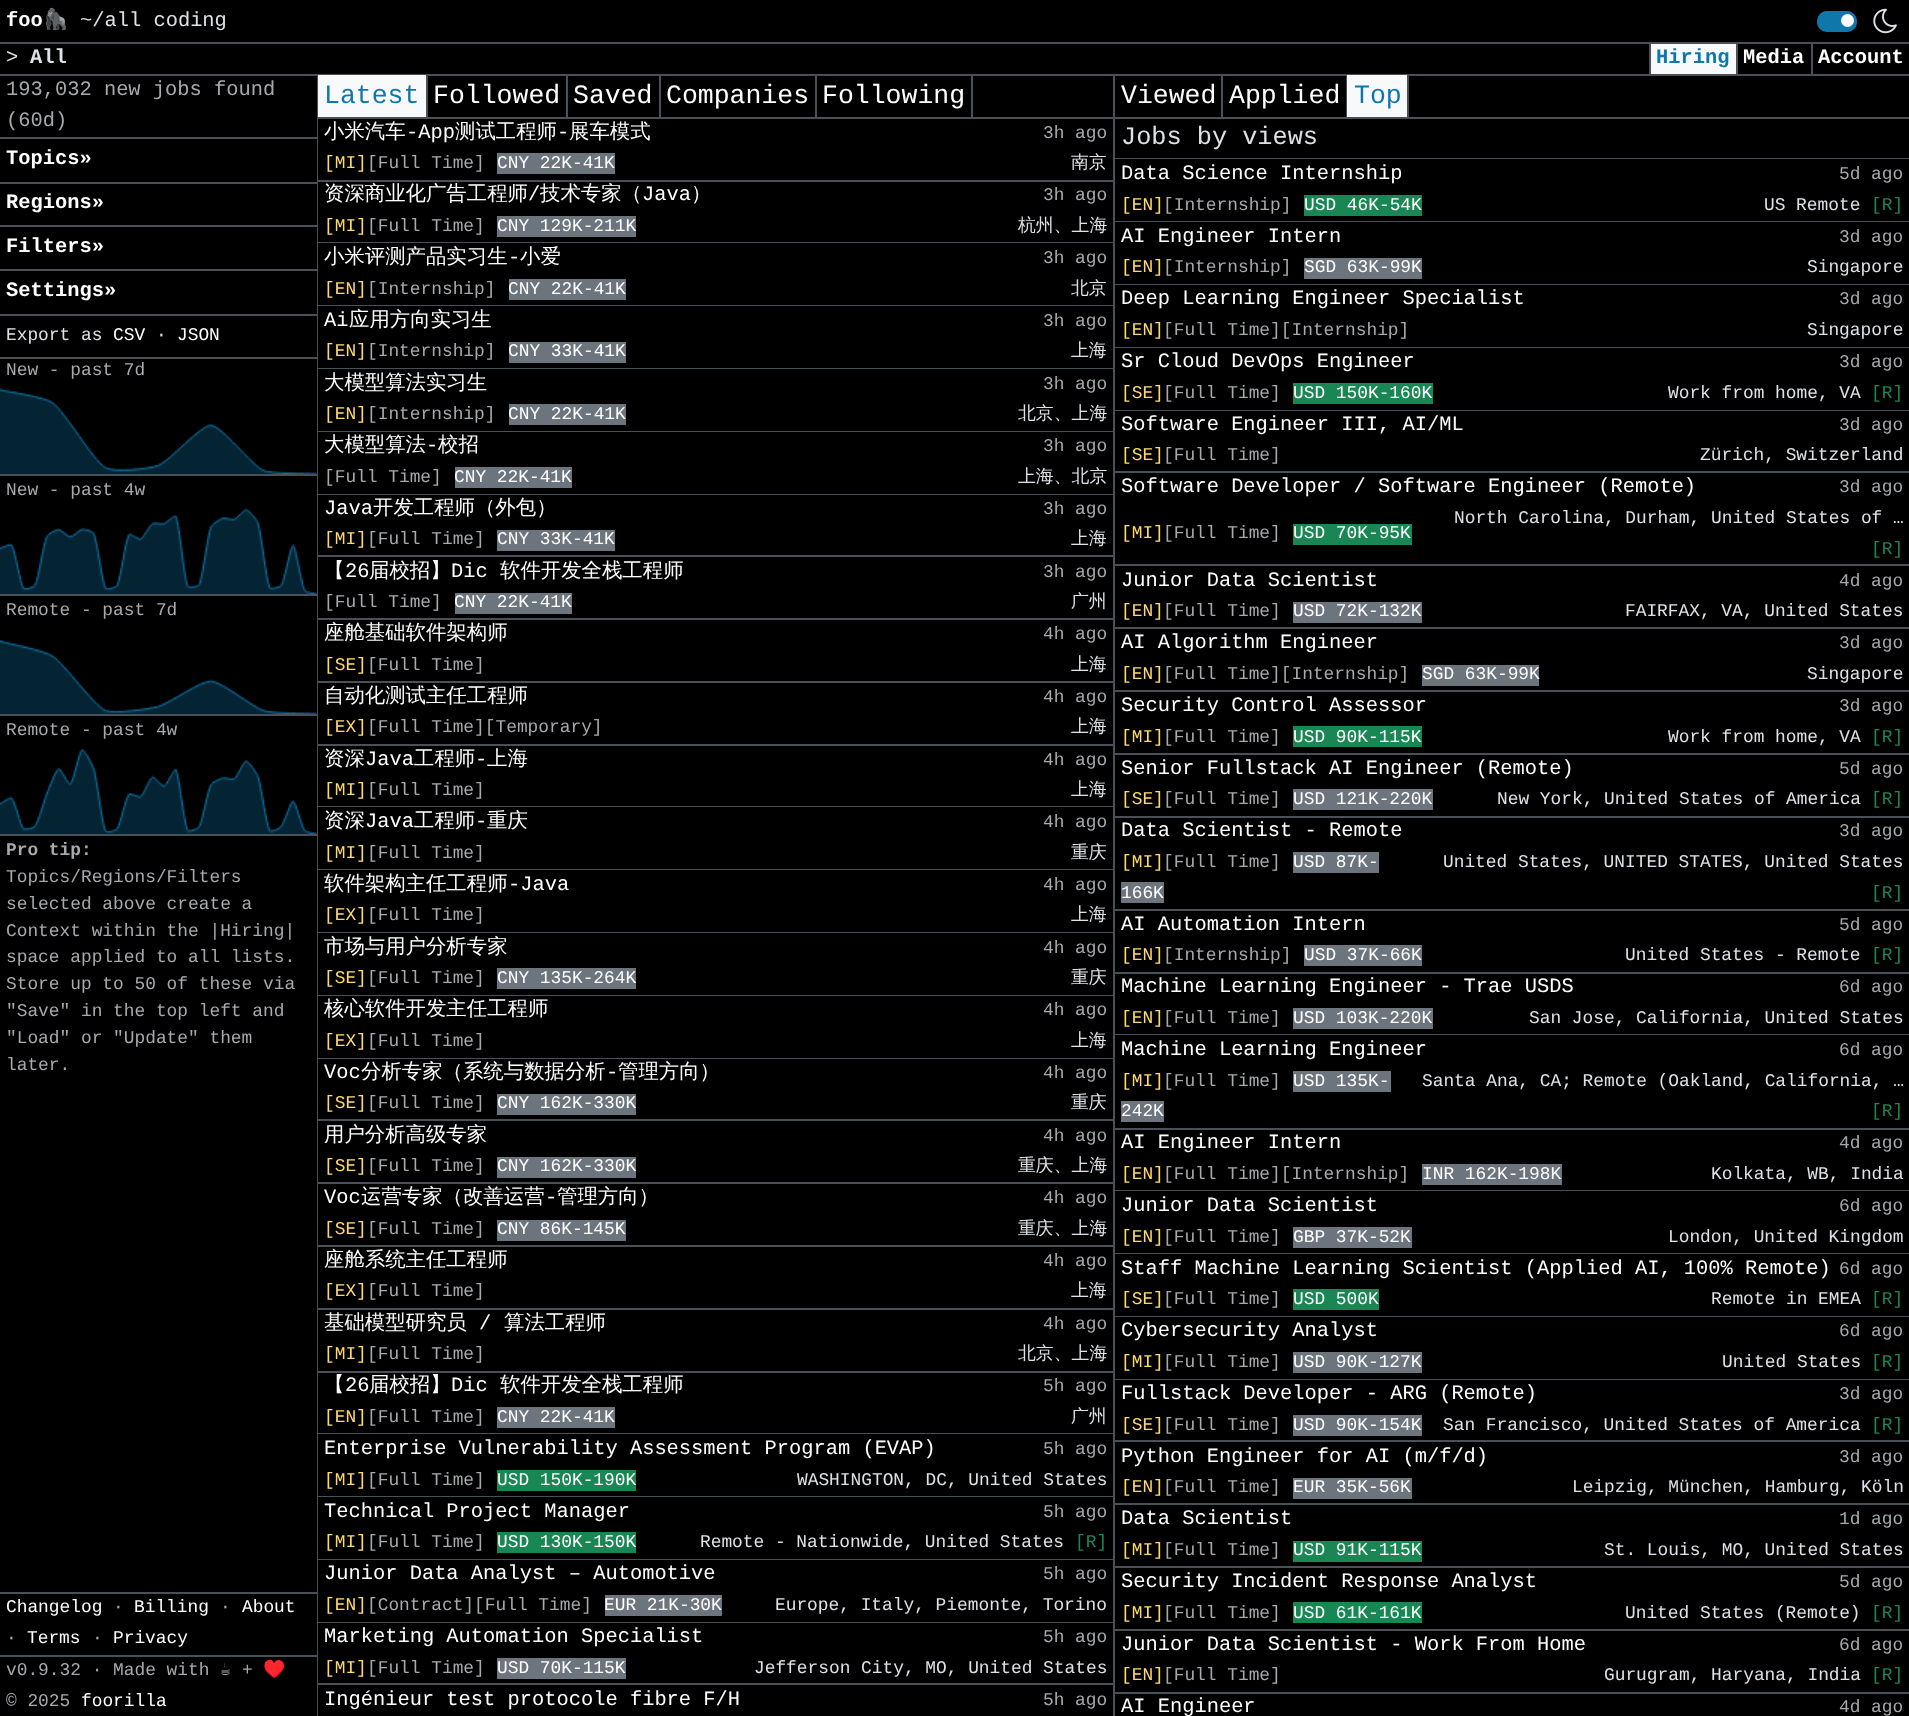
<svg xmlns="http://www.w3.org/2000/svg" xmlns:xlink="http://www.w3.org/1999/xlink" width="1909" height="1716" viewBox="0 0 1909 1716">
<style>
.cls-1{font:bold 20.4px Liberation Mono;fill:#ffffff}
.cls-2{font:bold 20.4px Noto Color Emoji;fill:#ffffff}
.cls-3{font:20.4px Liberation Mono;fill:#dee2e6}
.cls-4{font:bold 20.4px Liberation Mono;fill:#dee2e6}
.cls-5{font:bold 20.4px Liberation Mono;fill:#1077aa}
.cls-6{font:20.4px Liberation Mono;fill:#a7aaad}
.cls-7{font:17.85px Liberation Mono;fill:#dee2e6}
.cls-8{font:17.85px Liberation Mono;fill:#ffffff}
.cls-9{font:17.85px Liberation Mono;fill:#a7aaad}
.cls-10{font:bold 17.85px Liberation Mono;fill:#a7aaad}
.cls-11{font:17.85px DejaVu Sans Mono;fill:#a7aaad}
.cls-12{font:17.85px Noto Color Emoji;fill:#a7aaad}
.cls-13{font:26.5px Liberation Mono;fill:#1077aa}
.cls-14{font:26.5px Liberation Mono;fill:#ffffff}
.cls-15{font:500 20.4px WenQuanYi Zen Hei;fill:#ffffff}
.cls-16{font:20.4px Liberation Mono;fill:#ffffff}
.cls-17{font:17.85px Liberation Mono;fill:#ffda6a}
.cls-18{font:500 17.85px WenQuanYi Zen Hei;fill:#dee2e6}
.cls-19{font:17.85px Liberation Mono;fill:#198754}
.cls-20{font:25.25px Liberation Mono;fill:#dee2e6}
</style>
<rect width="100%" height="100%" fill="#000000"/>
<rect fill="#495057" x="0" y="42" width="1909" height="2"/>
<rect fill="#1077aa" x="1817" y="11" width="40" height="21" rx="10.5"/>
<circle fill="#ffffff" cx="1847.5" cy="20.5" r="6.5"/>
<rect fill="none" stroke="#1077aa" stroke-width="2" x="1818" y="12" width="38" height="19" rx="9.5"/>
<image xlink:href="image0.png" x="1873" y="8" width="24" height="26"/>
<rect fill="#495057" x="0" y="74" width="1909" height="2"/>
<rect fill="#f8f9fa" x="1651" y="44" width="85" height="30"/>
<rect fill="#495057" x="1649" y="44" width="2" height="30"/>
<rect fill="#495057" x="1736" y="44" width="2" height="30"/>
<rect fill="#495057" x="1811" y="44" width="2" height="30"/>
<rect fill="#495057" x="317" y="75" width="1" height="1641"/>
<rect fill="#495057" x="0" y="137" width="317" height="2"/>
<rect fill="#495057" x="0" y="182" width="317" height="2"/>
<rect fill="#495057" x="0" y="225" width="317" height="2"/>
<rect fill="#495057" x="0" y="269" width="317" height="2"/>
<rect fill="#495057" x="0" y="314" width="317" height="2"/>
<rect fill="#495057" x="0" y="357" width="317" height="2"/>
<rect fill="#495057" x="0" y="474" width="317" height="2"/>
<image xlink:href="image1.png" x="0" y="388" width="317" height="86"/>
<rect fill="#495057" x="0" y="594" width="317" height="2"/>
<image xlink:href="image2.png" x="0" y="508" width="317" height="86"/>
<rect fill="#495057" x="0" y="714" width="317" height="2"/>
<image xlink:href="image3.png" x="0" y="640" width="317" height="74"/>
<rect fill="#495057" x="0" y="834" width="317" height="2"/>
<image xlink:href="image4.png" x="0" y="748" width="317" height="86"/>
<rect fill="#495057" x="0" y="1592" width="317" height="2"/>
<rect fill="#495057" x="0" y="1655" width="317" height="2"/>
<rect fill="#495057" x="1113" y="75" width="2" height="1641"/>
<rect fill="#495057" x="318" y="117" width="795" height="2"/>
<rect fill="#f8f9fa" x="318" y="75" width="108" height="42"/>
<rect fill="#495057" x="426" y="75" width="2" height="42"/>
<rect fill="#495057" x="566" y="75" width="2" height="42"/>
<rect fill="#495057" x="659" y="75" width="2" height="42"/>
<rect fill="#495057" x="815" y="75" width="2" height="42"/>
<rect fill="#495057" x="971" y="75" width="2" height="42"/>
<rect fill="#495057" x="318" y="180" width="795" height="2"/>
<rect fill="#6c757d" x="497" y="153" width="118" height="21"/>
<rect fill="#495057" x="318" y="242" width="795" height="1"/>
<rect fill="#6c757d" x="497" y="216" width="139" height="21"/>
<rect fill="#495057" x="318" y="305" width="795" height="1"/>
<rect fill="#6c757d" x="509" y="279" width="117" height="21"/>
<rect fill="#495057" x="318" y="368" width="795" height="1"/>
<rect fill="#6c757d" x="509" y="342" width="117" height="21"/>
<rect fill="#495057" x="318" y="431" width="795" height="1"/>
<rect fill="#6c757d" x="509" y="404" width="117" height="21"/>
<rect fill="#495057" x="318" y="494" width="795" height="1"/>
<rect fill="#6c757d" x="455" y="467" width="117" height="21"/>
<rect fill="#495057" x="318" y="555" width="795" height="2"/>
<rect fill="#6c757d" x="497" y="530" width="118" height="21"/>
<rect fill="#495057" x="318" y="618" width="795" height="2"/>
<rect fill="#6c757d" x="455" y="593" width="117" height="21"/>
<rect fill="#495057" x="318" y="681" width="795" height="2"/>
<rect fill="#495057" x="318" y="744" width="795" height="2"/>
<rect fill="#495057" x="318" y="806" width="795" height="1"/>
<rect fill="#495057" x="318" y="869" width="795" height="1"/>
<rect fill="#495057" x="318" y="932" width="795" height="1"/>
<rect fill="#495057" x="318" y="995" width="795" height="1"/>
<rect fill="#6c757d" x="497" y="968" width="139" height="21"/>
<rect fill="#495057" x="318" y="1058" width="795" height="1"/>
<rect fill="#495057" x="318" y="1119" width="795" height="2"/>
<rect fill="#6c757d" x="497" y="1094" width="139" height="21"/>
<rect fill="#495057" x="318" y="1182" width="795" height="2"/>
<rect fill="#6c757d" x="497" y="1157" width="139" height="21"/>
<rect fill="#495057" x="318" y="1245" width="795" height="2"/>
<rect fill="#6c757d" x="497" y="1220" width="129" height="21"/>
<rect fill="#495057" x="318" y="1308" width="795" height="2"/>
<rect fill="#495057" x="318" y="1371" width="795" height="2"/>
<rect fill="#495057" x="318" y="1433" width="795" height="1"/>
<rect fill="#6c757d" x="497" y="1407" width="118" height="21"/>
<rect fill="#495057" x="318" y="1496" width="795" height="1"/>
<rect fill="#198754" x="497" y="1470" width="139" height="21"/>
<rect fill="#495057" x="318" y="1559" width="795" height="1"/>
<rect fill="#198754" x="497" y="1532" width="139" height="21"/>
<rect fill="#495057" x="318" y="1622" width="795" height="1"/>
<rect fill="#6c757d" x="605" y="1595" width="117" height="21"/>
<rect fill="#495057" x="318" y="1683" width="795" height="2"/>
<rect fill="#6c757d" x="497" y="1658" width="129" height="21"/>
<rect fill="#495057" x="1115" y="117" width="794" height="2"/>
<rect fill="#495057" x="1221" y="75" width="2" height="42"/>
<rect fill="#495057" x="1346" y="75" width="1" height="42"/>
<rect fill="#f8f9fa" x="1347" y="75" width="60" height="42"/>
<rect fill="#495057" x="1407" y="75" width="2" height="42"/>
<rect fill="#495057" x="1115" y="158" width="794" height="1"/>
<rect fill="#495057" x="1115" y="221" width="794" height="1"/>
<rect fill="#198754" x="1304" y="195" width="118" height="21"/>
<rect fill="#495057" x="1115" y="284" width="794" height="1"/>
<rect fill="#6c757d" x="1304" y="258" width="118" height="21"/>
<rect fill="#495057" x="1115" y="347" width="794" height="1"/>
<rect fill="#495057" x="1115" y="410" width="794" height="1"/>
<rect fill="#198754" x="1293" y="383" width="140" height="21"/>
<rect fill="#495057" x="1115" y="471" width="794" height="2"/>
<rect fill="#495057" x="1115" y="564" width="794" height="2"/>
<rect fill="#198754" x="1293" y="524" width="119" height="21"/>
<rect fill="#495057" x="1115" y="627" width="794" height="2"/>
<rect fill="#6c757d" x="1293" y="602" width="129" height="21"/>
<rect fill="#495057" x="1115" y="690" width="794" height="2"/>
<rect fill="#6c757d" x="1422" y="665" width="117" height="21"/>
<rect fill="#495057" x="1115" y="753" width="794" height="2"/>
<rect fill="#198754" x="1293" y="726" width="129" height="21"/>
<rect fill="#495057" x="1115" y="816" width="794" height="2"/>
<rect fill="#6c757d" x="1293" y="789" width="140" height="21"/>
<rect fill="#495057" x="1115" y="909" width="794" height="2"/>
<rect fill="#6c757d" x="1293" y="852" width="86" height="21"/>
<rect fill="#6c757d" x="1121" y="882" width="43" height="21"/>
<rect fill="#495057" x="1115" y="972" width="794" height="2"/>
<rect fill="#6c757d" x="1304" y="945" width="118" height="21"/>
<rect fill="#495057" x="1115" y="1034" width="794" height="1"/>
<rect fill="#6c757d" x="1293" y="1008" width="140" height="21"/>
<rect fill="#495057" x="1115" y="1128" width="794" height="2"/>
<rect fill="#6c757d" x="1293" y="1071" width="98" height="21"/>
<rect fill="#6c757d" x="1121" y="1101" width="43" height="21"/>
<rect fill="#495057" x="1115" y="1190" width="794" height="1"/>
<rect fill="#6c757d" x="1422" y="1164" width="140" height="21"/>
<rect fill="#495057" x="1115" y="1253" width="794" height="1"/>
<rect fill="#6c757d" x="1293" y="1227" width="119" height="21"/>
<rect fill="#495057" x="1115" y="1316" width="794" height="1"/>
<rect fill="#198754" x="1293" y="1289" width="86" height="21"/>
<rect fill="#495057" x="1115" y="1379" width="794" height="1"/>
<rect fill="#6c757d" x="1293" y="1352" width="129" height="21"/>
<rect fill="#495057" x="1115" y="1440" width="794" height="2"/>
<rect fill="#6c757d" x="1293" y="1415" width="129" height="21"/>
<rect fill="#495057" x="1115" y="1503" width="794" height="2"/>
<rect fill="#6c757d" x="1293" y="1478" width="119" height="21"/>
<rect fill="#495057" x="1115" y="1566" width="794" height="2"/>
<rect fill="#198754" x="1293" y="1541" width="129" height="21"/>
<rect fill="#495057" x="1115" y="1629" width="794" height="2"/>
<rect fill="#198754" x="1293" y="1602" width="129" height="21"/>
<rect fill="#495057" x="1115" y="1692" width="794" height="2"/>
<text class="cls-1" x="6" y="26">foo</text>
<text class="cls-2" x="43" y="26">🦍</text>
<text class="cls-3" x="80" y="26">~/all coding</text>
<text class="cls-3" x="6" y="63">&gt;</text>
<text class="cls-4" x="30" y="63">All</text>
<text class="cls-5" x="1656" y="63">Hiring</text>
<text class="cls-1" x="1743" y="63">Media</text>
<text class="cls-1" x="1818" y="63">Account</text>
<text class="cls-6"><tspan x="6" y="95">193,032 new jobs found</tspan><tspan x="6" y="126">(60d)</tspan></text>
<text class="cls-1" x="6" y="164">Topics»</text>
<text class="cls-1" x="6" y="208">Regions»</text>
<text class="cls-1" x="6" y="252">Filters»</text>
<text class="cls-1" x="6" y="296">Settings»</text>
<text class="cls-7" x="6" y="340">Export as</text>
<text class="cls-8" x="113" y="340">CSV</text>
<text class="cls-7" x="156" y="340">·</text>
<text class="cls-8" x="177" y="340">JSON</text>
<text class="cls-9" x="6" y="375">New - past 7d</text>
<text class="cls-9" x="6" y="495">New - past 4w</text>
<text class="cls-9" x="6" y="615">Remote - past 7d</text>
<text class="cls-9" x="6" y="735">Remote - past 4w</text>
<text class="cls-10" x="6" y="855">Pro tip:</text>
<text class="cls-9"><tspan x="6" y="882">Topics/Regions/Filters</tspan><tspan x="6" y="909">selected above create a</tspan><tspan x="6" y="936">Context within the |Hiring|</tspan><tspan x="6" y="962">space applied to all lists.</tspan><tspan x="6" y="989">Store up to 50 of these via</tspan><tspan x="6" y="1016">"Save" in the top left and</tspan><tspan x="6" y="1043">"Load" or "Update" them</tspan><tspan x="6" y="1070">later.</tspan></text>
<text class="cls-8" x="6" y="1612">Changelog</text>
<text class="cls-9" x="113" y="1612">·</text>
<text class="cls-8" x="134" y="1612">Billing</text>
<text class="cls-9" x="220" y="1612">·</text>
<text class="cls-8" x="242" y="1612">About</text>
<text class="cls-9" x="6" y="1643">·</text>
<text class="cls-8" x="27" y="1643">Terms</text>
<text class="cls-9" x="92" y="1643">·</text>
<text class="cls-8" x="113" y="1643">Privacy</text>
<text class="cls-9" x="6" y="1675">v0.9.32 · Made with</text>
<text class="cls-11" x="220" y="1675">☕</text>
<text class="cls-9" x="242" y="1675">+</text>
<text class="cls-12" x="263" y="1675">♥️</text>
<text class="cls-9" x="6" y="1706">© 2025</text>
<text class="cls-8" x="81" y="1706">foorilla</text>
<text class="cls-13" x="324" y="103">Latest</text>
<text class="cls-14" x="433" y="103">Followed</text>
<text class="cls-14" x="573" y="103">Saved</text>
<text class="cls-14" x="666" y="103">Companies</text>
<text class="cls-14" x="822" y="103">Following</text>
<text class="cls-15" x="324" y="138">小米汽车</text>
<text class="cls-16" x="406" y="138">-App</text>
<text class="cls-15" x="455" y="138">测试工程师</text>
<text class="cls-16" x="557" y="138">-</text>
<text class="cls-15" x="569" y="138">展车模式</text>
<text class="cls-9" x="1043" y="138">3h ago</text>
<text class="cls-17" x="324" y="168">[MI]</text>
<text class="cls-9" x="367" y="168">[Full Time]</text>
<text class="cls-8" x="497" y="168">CNY 22K-41K</text>
<text class="cls-18" x="1071" y="168">南京</text>
<text class="cls-15" x="324" y="200">资深商业化广告工程师</text>
<text class="cls-16" x="528" y="200">/</text>
<text class="cls-15" x="540" y="200">技术专家（</text>
<text class="cls-16" x="642" y="200">Java</text>
<text class="cls-15" x="691" y="200">）</text>
<text class="cls-9" x="1043" y="200">3h ago</text>
<text class="cls-17" x="324" y="231">[MI]</text>
<text class="cls-9" x="367" y="231">[Full Time]</text>
<text class="cls-8" x="497" y="231">CNY 129K-211K</text>
<text class="cls-18" x="1018" y="231">杭州、上海</text>
<text class="cls-15" x="324" y="263">小米评测产品实习生</text>
<text class="cls-16" x="508" y="263">-</text>
<text class="cls-15" x="520" y="263">小爱</text>
<text class="cls-9" x="1043" y="263">3h ago</text>
<text class="cls-17" x="324" y="294">[EN]</text>
<text class="cls-9" x="367" y="294">[Internship]</text>
<text class="cls-8" x="508" y="294">CNY 22K-41K</text>
<text class="cls-18" x="1071" y="294">北京</text>
<text class="cls-16" x="324" y="326">Ai</text>
<text class="cls-15" x="349" y="326">应用方向实习生</text>
<text class="cls-9" x="1043" y="326">3h ago</text>
<text class="cls-17" x="324" y="356">[EN]</text>
<text class="cls-9" x="367" y="356">[Internship]</text>
<text class="cls-8" x="508" y="356">CNY 33K-41K</text>
<text class="cls-18" x="1071" y="356">上海</text>
<text class="cls-15" x="324" y="389">大模型算法实习生</text>
<text class="cls-9" x="1043" y="389">3h ago</text>
<text class="cls-17" x="324" y="419">[EN]</text>
<text class="cls-9" x="367" y="419">[Internship]</text>
<text class="cls-8" x="508" y="419">CNY 22K-41K</text>
<text class="cls-18" x="1018" y="419">北京、上海</text>
<text class="cls-15" x="324" y="451">大模型算法</text>
<text class="cls-16" x="426" y="451">-</text>
<text class="cls-15" x="438" y="451">校招</text>
<text class="cls-9" x="1043" y="451">3h ago</text>
<text class="cls-9" x="324" y="482">[Full Time]</text>
<text class="cls-8" x="454" y="482">CNY 22K-41K</text>
<text class="cls-18" x="1018" y="482">上海、北京</text>
<text class="cls-16" x="324" y="514">Java</text>
<text class="cls-15" x="373" y="514">开发工程师（外包）</text>
<text class="cls-9" x="1043" y="514">3h ago</text>
<text class="cls-17" x="324" y="544">[MI]</text>
<text class="cls-9" x="367" y="544">[Full Time]</text>
<text class="cls-8" x="497" y="544">CNY 33K-41K</text>
<text class="cls-18" x="1071" y="544">上海</text>
<text class="cls-15" x="324" y="577">【</text>
<text class="cls-16" x="345" y="577">26</text>
<text class="cls-15" x="369" y="577">届校招】</text>
<text class="cls-16" x="451" y="577">Dic</text>
<text class="cls-15" x="500" y="577">软件开发全栈工程师</text>
<text class="cls-9" x="1043" y="577">3h ago</text>
<text class="cls-9" x="324" y="607">[Full Time]</text>
<text class="cls-8" x="454" y="607">CNY 22K-41K</text>
<text class="cls-18" x="1071" y="607">广州</text>
<text class="cls-15" x="324" y="639">座舱基础软件架构师</text>
<text class="cls-9" x="1043" y="639">4h ago</text>
<text class="cls-17" x="324" y="670">[SE]</text>
<text class="cls-9" x="367" y="670">[Full Time]</text>
<text class="cls-18" x="1071" y="670">上海</text>
<text class="cls-15" x="324" y="702">自动化测试主任工程师</text>
<text class="cls-9" x="1043" y="702">4h ago</text>
<text class="cls-17" x="324" y="732">[EX]</text>
<text class="cls-9" x="367" y="732">[Full Time][Temporary]</text>
<text class="cls-18" x="1071" y="732">上海</text>
<text class="cls-15" x="324" y="765">资深</text>
<text class="cls-16" x="365" y="765">Java</text>
<text class="cls-15" x="414" y="765">工程师</text>
<text class="cls-16" x="475" y="765">-</text>
<text class="cls-15" x="487" y="765">上海</text>
<text class="cls-9" x="1043" y="765">4h ago</text>
<text class="cls-17" x="324" y="795">[MI]</text>
<text class="cls-9" x="367" y="795">[Full Time]</text>
<text class="cls-18" x="1071" y="795">上海</text>
<text class="cls-15" x="324" y="827">资深</text>
<text class="cls-16" x="365" y="827">Java</text>
<text class="cls-15" x="414" y="827">工程师</text>
<text class="cls-16" x="475" y="827">-</text>
<text class="cls-15" x="487" y="827">重庆</text>
<text class="cls-9" x="1043" y="827">4h ago</text>
<text class="cls-17" x="324" y="858">[MI]</text>
<text class="cls-9" x="367" y="858">[Full Time]</text>
<text class="cls-18" x="1071" y="858">重庆</text>
<text class="cls-15" x="324" y="890">软件架构主任工程师</text>
<text class="cls-16" x="508" y="890">-Java</text>
<text class="cls-9" x="1043" y="890">4h ago</text>
<text class="cls-17" x="324" y="920">[EX]</text>
<text class="cls-9" x="367" y="920">[Full Time]</text>
<text class="cls-18" x="1071" y="920">上海</text>
<text class="cls-15" x="324" y="953">市场与用户分析专家</text>
<text class="cls-9" x="1043" y="953">4h ago</text>
<text class="cls-17" x="324" y="983">[SE]</text>
<text class="cls-9" x="367" y="983">[Full Time]</text>
<text class="cls-8" x="497" y="983">CNY 135K-264K</text>
<text class="cls-18" x="1071" y="983">重庆</text>
<text class="cls-15" x="324" y="1015">核心软件开发主任工程师</text>
<text class="cls-9" x="1043" y="1015">4h ago</text>
<text class="cls-17" x="324" y="1046">[EX]</text>
<text class="cls-9" x="367" y="1046">[Full Time]</text>
<text class="cls-18" x="1071" y="1046">上海</text>
<text class="cls-16" x="324" y="1078">Voc</text>
<text class="cls-15" x="361" y="1078">分析专家（系统与数据分析</text>
<text class="cls-16" x="606" y="1078">-</text>
<text class="cls-15" x="618" y="1078">管理方向）</text>
<text class="cls-9" x="1043" y="1078">4h ago</text>
<text class="cls-17" x="324" y="1108">[SE]</text>
<text class="cls-9" x="367" y="1108">[Full Time]</text>
<text class="cls-8" x="497" y="1108">CNY 162K-330K</text>
<text class="cls-18" x="1071" y="1108">重庆</text>
<text class="cls-15" x="324" y="1141">用户分析高级专家</text>
<text class="cls-9" x="1043" y="1141">4h ago</text>
<text class="cls-17" x="324" y="1171">[SE]</text>
<text class="cls-9" x="367" y="1171">[Full Time]</text>
<text class="cls-8" x="497" y="1171">CNY 162K-330K</text>
<text class="cls-18" x="1018" y="1171">重庆、上海</text>
<text class="cls-16" x="324" y="1203">Voc</text>
<text class="cls-15" x="361" y="1203">运营专家（改善运营</text>
<text class="cls-16" x="545" y="1203">-</text>
<text class="cls-15" x="557" y="1203">管理方向）</text>
<text class="cls-9" x="1043" y="1203">4h ago</text>
<text class="cls-17" x="324" y="1234">[SE]</text>
<text class="cls-9" x="367" y="1234">[Full Time]</text>
<text class="cls-8" x="497" y="1234">CNY 86K-145K</text>
<text class="cls-18" x="1018" y="1234">重庆、上海</text>
<text class="cls-15" x="324" y="1266">座舱系统主任工程师</text>
<text class="cls-9" x="1043" y="1266">4h ago</text>
<text class="cls-17" x="324" y="1296">[EX]</text>
<text class="cls-9" x="367" y="1296">[Full Time]</text>
<text class="cls-18" x="1071" y="1296">上海</text>
<text class="cls-15" x="324" y="1329">基础模型研究员</text>
<text class="cls-16" x="479" y="1329">/</text>
<text class="cls-15" x="504" y="1329">算法工程师</text>
<text class="cls-9" x="1043" y="1329">4h ago</text>
<text class="cls-17" x="324" y="1359">[MI]</text>
<text class="cls-9" x="367" y="1359">[Full Time]</text>
<text class="cls-18" x="1018" y="1359">北京、上海</text>
<text class="cls-15" x="324" y="1391">【</text>
<text class="cls-16" x="345" y="1391">26</text>
<text class="cls-15" x="369" y="1391">届校招】</text>
<text class="cls-16" x="451" y="1391">Dic</text>
<text class="cls-15" x="500" y="1391">软件开发全栈工程师</text>
<text class="cls-9" x="1043" y="1391">5h ago</text>
<text class="cls-17" x="324" y="1422">[EN]</text>
<text class="cls-9" x="367" y="1422">[Full Time]</text>
<text class="cls-8" x="497" y="1422">CNY 22K-41K</text>
<text class="cls-18" x="1071" y="1422">广州</text>
<text class="cls-16" x="324" y="1454">Enterprise Vulnerability Assessment Program (EVAP)</text>
<text class="cls-9" x="1043" y="1454">5h ago</text>
<text class="cls-17" x="324" y="1485">[MI]</text>
<text class="cls-9" x="367" y="1485">[Full Time]</text>
<text class="cls-8" x="497" y="1485">USD 150K-190K</text>
<text class="cls-7" x="797" y="1485">WASHINGTON, DC, United States</text>
<text class="cls-16" x="324" y="1517">Technical Project Manager</text>
<text class="cls-9" x="1043" y="1517">5h ago</text>
<text class="cls-17" x="324" y="1547">[MI]</text>
<text class="cls-9" x="367" y="1547">[Full Time]</text>
<text class="cls-8" x="497" y="1547">USD 130K-150K</text>
<text class="cls-7" x="700" y="1547">Remote - Nationwide, United States</text>
<text class="cls-19" x="1075" y="1547">[R]</text>
<text class="cls-16" x="324" y="1579">Junior Data Analyst – Automotive</text>
<text class="cls-9" x="1043" y="1579">5h ago</text>
<text class="cls-17" x="324" y="1610">[EN]</text>
<text class="cls-9" x="367" y="1610">[Contract][Full Time]</text>
<text class="cls-8" x="604" y="1610">EUR 21K-30K</text>
<text class="cls-7" x="775" y="1610">Europe, Italy, Piemonte, Torino</text>
<text class="cls-16" x="324" y="1642">Marketing Automation Specialist</text>
<text class="cls-9" x="1043" y="1642">5h ago</text>
<text class="cls-17" x="324" y="1673">[MI]</text>
<text class="cls-9" x="367" y="1673">[Full Time]</text>
<text class="cls-8" x="497" y="1673">USD 70K-115K</text>
<text class="cls-7" x="754" y="1673">Jefferson City, MO, United States</text>
<text class="cls-16" x="324" y="1705">Ingénieur test protocole fibre F/H</text>
<text class="cls-9" x="1043" y="1705">5h ago</text>
<text class="cls-14" x="1121" y="103">Viewed</text>
<text class="cls-14" x="1229" y="103">Applied</text>
<text class="cls-13" x="1354" y="103">Top</text>
<text class="cls-20" x="1121" y="144">Jobs by views</text>
<text class="cls-16" x="1121" y="179">Data Science Internship</text>
<text class="cls-9" x="1839" y="179">5d ago</text>
<text class="cls-17" x="1121" y="210">[EN]</text>
<text class="cls-9" x="1163" y="210">[Internship]</text>
<text class="cls-8" x="1304" y="210">USD 46K-54K</text>
<text class="cls-7" x="1764" y="210">US Remote</text>
<text class="cls-19" x="1871" y="210">[R]</text>
<text class="cls-16" x="1121" y="242">AI Engineer Intern</text>
<text class="cls-9" x="1839" y="242">3d ago</text>
<text class="cls-17" x="1121" y="272">[EN]</text>
<text class="cls-9" x="1163" y="272">[Internship]</text>
<text class="cls-8" x="1304" y="272">SGD 63K-99K</text>
<text class="cls-7" x="1807" y="272">Singapore</text>
<text class="cls-16" x="1121" y="304">Deep Learning Engineer Specialist</text>
<text class="cls-9" x="1839" y="304">3d ago</text>
<text class="cls-17" x="1121" y="335">[EN]</text>
<text class="cls-9" x="1163" y="335">[Full Time][Internship]</text>
<text class="cls-7" x="1807" y="335">Singapore</text>
<text class="cls-16" x="1121" y="367">Sr Cloud DevOps Engineer</text>
<text class="cls-9" x="1839" y="367">3d ago</text>
<text class="cls-17" x="1121" y="398">[SE]</text>
<text class="cls-9" x="1163" y="398">[Full Time]</text>
<text class="cls-8" x="1293" y="398">USD 150K-160K</text>
<text class="cls-7" x="1668" y="398">Work from home, VA</text>
<text class="cls-19" x="1871" y="398">[R]</text>
<text class="cls-16" x="1121" y="430">Software Engineer III, AI/ML</text>
<text class="cls-9" x="1839" y="430">3d ago</text>
<text class="cls-17" x="1121" y="460">[SE]</text>
<text class="cls-9" x="1163" y="460">[Full Time]</text>
<text class="cls-7" x="1700" y="460">Zürich, Switzerland</text>
<text class="cls-16" x="1121" y="492">Software Developer / Software Engineer (Remote)</text>
<text class="cls-9" x="1839" y="492">3d ago</text>
<text class="cls-17" x="1121" y="538">[MI]</text>
<text class="cls-9" x="1163" y="538">[Full Time]</text>
<text class="cls-8" x="1293" y="538">USD 70K-95K</text>
<text class="cls-7" x="1454" y="523">North Carolina, Durham, United States of …</text>
<text class="cls-19" x="1871" y="554">[R]</text>
<text class="cls-16" x="1121" y="586">Junior Data Scientist</text>
<text class="cls-9" x="1839" y="586">4d ago</text>
<text class="cls-17" x="1121" y="616">[EN]</text>
<text class="cls-9" x="1163" y="616">[Full Time]</text>
<text class="cls-8" x="1293" y="616">USD 72K-132K</text>
<text class="cls-7" x="1625" y="616">FAIRFAX, VA, United States</text>
<text class="cls-16" x="1121" y="648">AI Algorithm Engineer</text>
<text class="cls-9" x="1839" y="648">3d ago</text>
<text class="cls-17" x="1121" y="679">[EN]</text>
<text class="cls-9" x="1163" y="679">[Full Time][Internship]</text>
<text class="cls-8" x="1422" y="679">SGD 63K-99K</text>
<text class="cls-7" x="1807" y="679">Singapore</text>
<text class="cls-16" x="1121" y="711">Security Control Assessor</text>
<text class="cls-9" x="1839" y="711">3d ago</text>
<text class="cls-17" x="1121" y="742">[MI]</text>
<text class="cls-9" x="1163" y="742">[Full Time]</text>
<text class="cls-8" x="1293" y="742">USD 90K-115K</text>
<text class="cls-7" x="1668" y="742">Work from home, VA</text>
<text class="cls-19" x="1871" y="742">[R]</text>
<text class="cls-16" x="1121" y="774">Senior Fullstack AI Engineer (Remote)</text>
<text class="cls-9" x="1839" y="774">5d ago</text>
<text class="cls-17" x="1121" y="804">[SE]</text>
<text class="cls-9" x="1163" y="804">[Full Time]</text>
<text class="cls-8" x="1293" y="804">USD 121K-220K</text>
<text class="cls-7" x="1497" y="804">New York, United States of America</text>
<text class="cls-19" x="1871" y="804">[R]</text>
<text class="cls-16" x="1121" y="836">Data Scientist - Remote</text>
<text class="cls-9" x="1839" y="836">3d ago</text>
<text class="cls-17" x="1121" y="867">[MI]</text>
<text class="cls-9" x="1163" y="867">[Full Time]</text>
<text class="cls-8" x="1293" y="867">USD 87K-</text>
<text class="cls-8" x="1121" y="898">166K</text>
<text class="cls-7" x="1443" y="867">United States, UNITED STATES, United States</text>
<text class="cls-19" x="1871" y="898">[R]</text>
<text class="cls-16" x="1121" y="930">AI Automation Intern</text>
<text class="cls-9" x="1839" y="930">5d ago</text>
<text class="cls-17" x="1121" y="960">[EN]</text>
<text class="cls-9" x="1163" y="960">[Internship]</text>
<text class="cls-8" x="1304" y="960">USD 37K-66K</text>
<text class="cls-7" x="1625" y="960">United States - Remote</text>
<text class="cls-19" x="1871" y="960">[R]</text>
<text class="cls-16" x="1121" y="992">Machine Learning Engineer - Trae USDS</text>
<text class="cls-9" x="1839" y="992">6d ago</text>
<text class="cls-17" x="1121" y="1023">[EN]</text>
<text class="cls-9" x="1163" y="1023">[Full Time]</text>
<text class="cls-8" x="1293" y="1023">USD 103K-220K</text>
<text class="cls-7" x="1529" y="1023">San Jose, California, United States</text>
<text class="cls-16" x="1121" y="1055">Machine Learning Engineer</text>
<text class="cls-9" x="1839" y="1055">6d ago</text>
<text class="cls-17" x="1121" y="1086">[MI]</text>
<text class="cls-9" x="1163" y="1086">[Full Time]</text>
<text class="cls-8" x="1293" y="1086">USD 135K-</text>
<text class="cls-8" x="1121" y="1116">242K</text>
<text class="cls-7" x="1422" y="1086">Santa Ana, CA; Remote (Oakland, California, …</text>
<text class="cls-19" x="1871" y="1116">[R]</text>
<text class="cls-16" x="1121" y="1148">AI Engineer Intern</text>
<text class="cls-9" x="1839" y="1148">4d ago</text>
<text class="cls-17" x="1121" y="1179">[EN]</text>
<text class="cls-9" x="1163" y="1179">[Full Time][Internship]</text>
<text class="cls-8" x="1422" y="1179">INR 162K-198K</text>
<text class="cls-7" x="1711" y="1179">Kolkata, WB, India</text>
<text class="cls-16" x="1121" y="1211">Junior Data Scientist</text>
<text class="cls-9" x="1839" y="1211">6d ago</text>
<text class="cls-17" x="1121" y="1242">[EN]</text>
<text class="cls-9" x="1163" y="1242">[Full Time]</text>
<text class="cls-8" x="1293" y="1242">GBP 37K-52K</text>
<text class="cls-7" x="1668" y="1242">London, United Kingdom</text>
<text class="cls-16" x="1121" y="1274">Staff Machine Learning Scientist (Applied AI, 100% Remote)</text>
<text class="cls-9" x="1839" y="1274">6d ago</text>
<text class="cls-17" x="1121" y="1304">[SE]</text>
<text class="cls-9" x="1163" y="1304">[Full Time]</text>
<text class="cls-8" x="1293" y="1304">USD 500K</text>
<text class="cls-7" x="1711" y="1304">Remote in EMEA</text>
<text class="cls-19" x="1871" y="1304">[R]</text>
<text class="cls-16" x="1121" y="1336">Cybersecurity Analyst</text>
<text class="cls-9" x="1839" y="1336">6d ago</text>
<text class="cls-17" x="1121" y="1367">[MI]</text>
<text class="cls-9" x="1163" y="1367">[Full Time]</text>
<text class="cls-8" x="1293" y="1367">USD 90K-127K</text>
<text class="cls-7" x="1722" y="1367">United States</text>
<text class="cls-19" x="1871" y="1367">[R]</text>
<text class="cls-16" x="1121" y="1399">Fullstack Developer - ARG (Remote)</text>
<text class="cls-9" x="1839" y="1399">3d ago</text>
<text class="cls-17" x="1121" y="1430">[SE]</text>
<text class="cls-9" x="1163" y="1430">[Full Time]</text>
<text class="cls-8" x="1293" y="1430">USD 90K-154K</text>
<text class="cls-7" x="1443" y="1430">San Francisco, United States of America</text>
<text class="cls-19" x="1871" y="1430">[R]</text>
<text class="cls-16" x="1121" y="1462">Python Engineer for AI (m/f/d)</text>
<text class="cls-9" x="1839" y="1462">3d ago</text>
<text class="cls-17" x="1121" y="1492">[EN]</text>
<text class="cls-9" x="1163" y="1492">[Full Time]</text>
<text class="cls-8" x="1293" y="1492">EUR 35K-56K</text>
<text class="cls-7" x="1572" y="1492">Leipzig, München, Hamburg, Köln</text>
<text class="cls-16" x="1121" y="1524">Data Scientist</text>
<text class="cls-9" x="1839" y="1524">1d ago</text>
<text class="cls-17" x="1121" y="1555">[MI]</text>
<text class="cls-9" x="1163" y="1555">[Full Time]</text>
<text class="cls-8" x="1293" y="1555">USD 91K-115K</text>
<text class="cls-7" x="1604" y="1555">St. Louis, MO, United States</text>
<text class="cls-16" x="1121" y="1587">Security Incident Response Analyst</text>
<text class="cls-9" x="1839" y="1587">5d ago</text>
<text class="cls-17" x="1121" y="1618">[MI]</text>
<text class="cls-9" x="1163" y="1618">[Full Time]</text>
<text class="cls-8" x="1293" y="1618">USD 61K-161K</text>
<text class="cls-7" x="1625" y="1618">United States (Remote)</text>
<text class="cls-19" x="1871" y="1618">[R]</text>
<text class="cls-16" x="1121" y="1650">Junior Data Scientist - Work From Home</text>
<text class="cls-9" x="1839" y="1650">6d ago</text>
<text class="cls-17" x="1121" y="1680">[EN]</text>
<text class="cls-9" x="1163" y="1680">[Full Time]</text>
<text class="cls-7" x="1604" y="1680">Gurugram, Haryana, India</text>
<text class="cls-19" x="1871" y="1680">[R]</text>
<text class="cls-16" x="1121" y="1712">AI Engineer</text>
<text class="cls-9" x="1839" y="1712">4d ago</text>
</svg>
